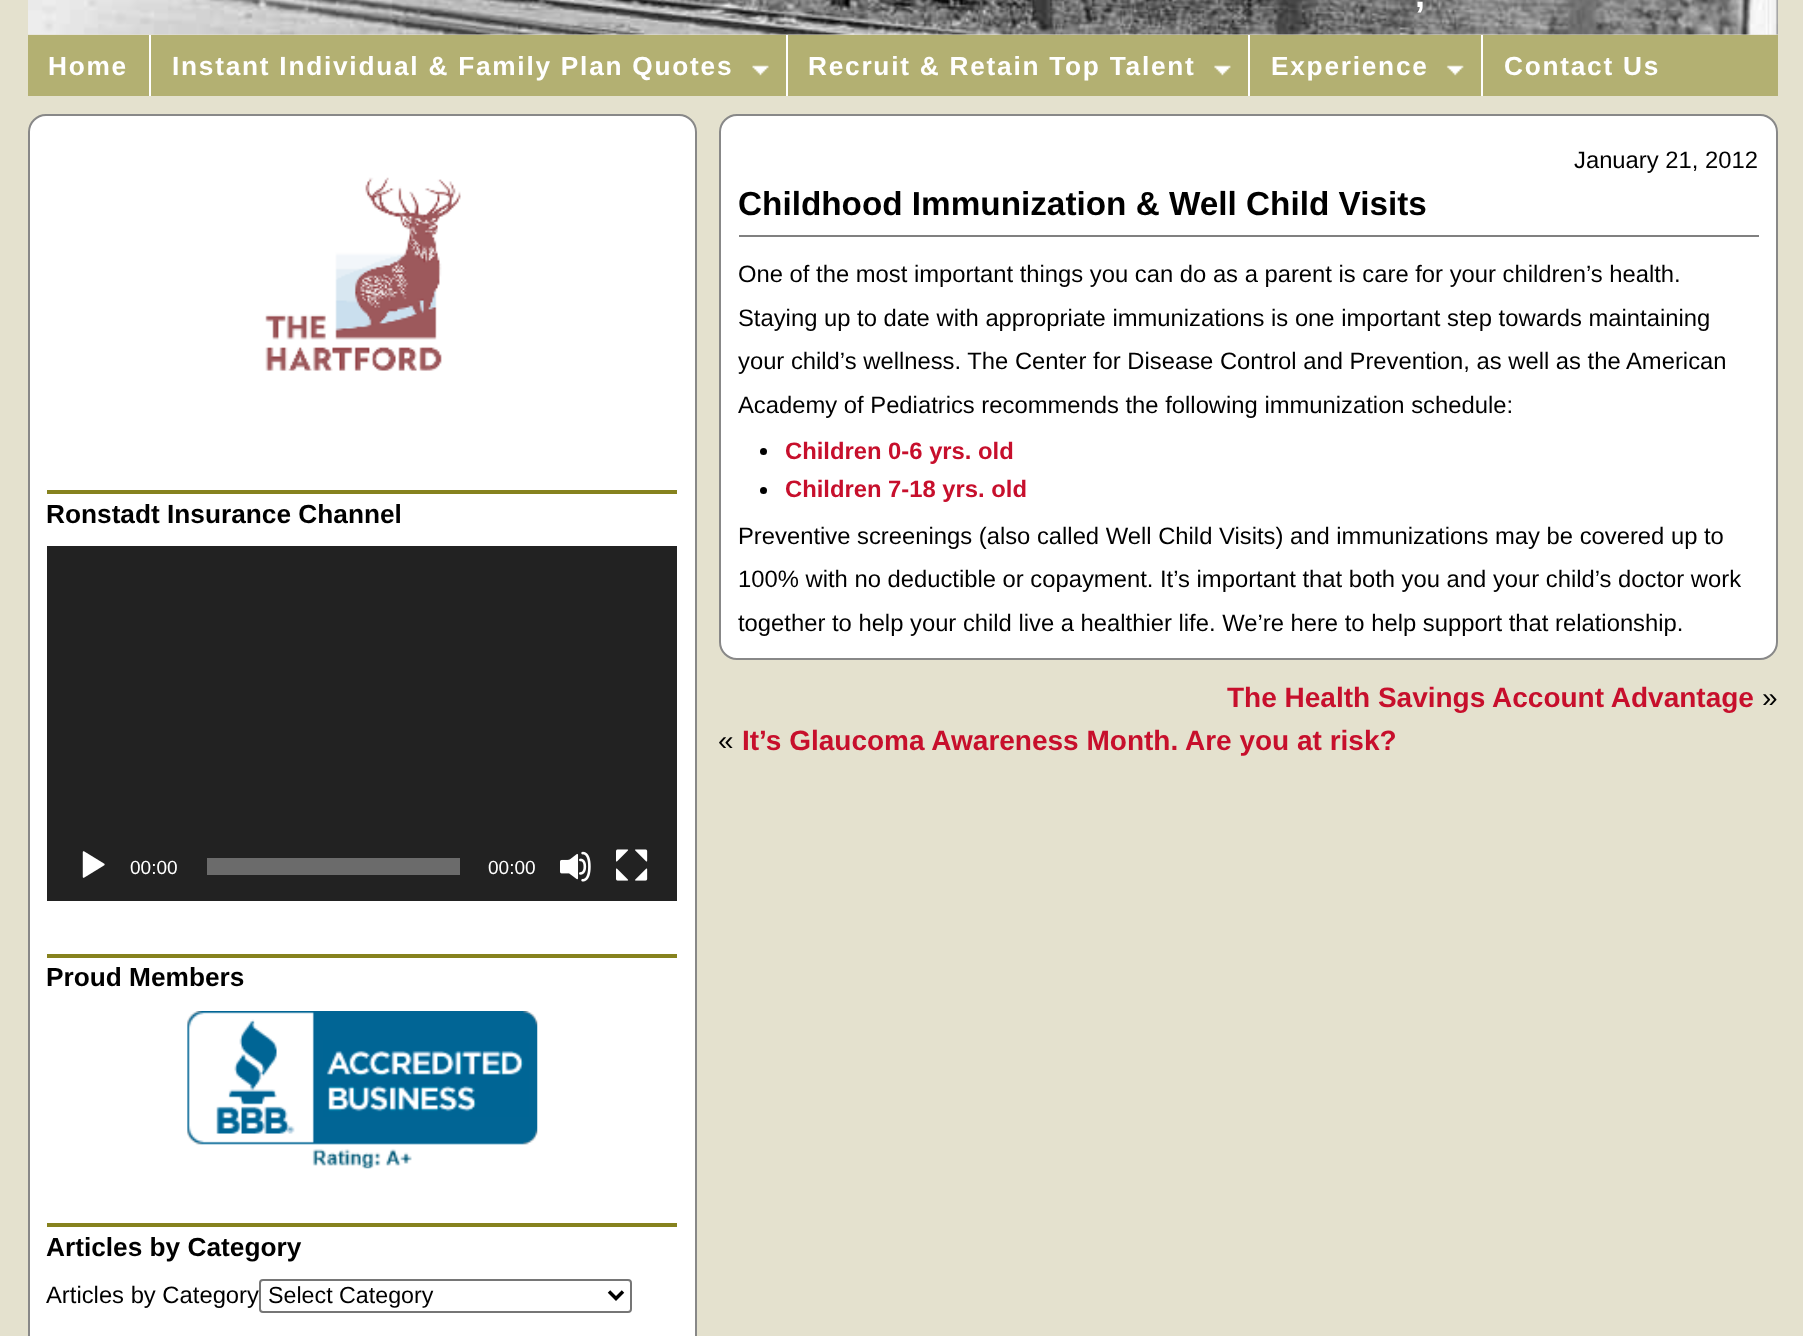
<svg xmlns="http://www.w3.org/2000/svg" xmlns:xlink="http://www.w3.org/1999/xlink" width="1803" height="1336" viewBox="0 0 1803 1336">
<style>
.cls-1{font:bold 36px Liberation Sans;fill:#ffffff}
.cls-2{font:bold 26.25px Liberation Sans;letter-spacing:1.75px;fill:#ffffff}
.cls-3{font:bold 26.25px Liberation Sans;fill:#000000}
.cls-4{font:19px Liberation Sans;fill:#ffffff}
.cls-5{font:23.8px Liberation Sans;fill:#000000}
.cls-6{font:23.25px Liberation Sans;fill:#000000}
.cls-7{font:bold 33.3px Liberation Sans;fill:#000000}
.cls-8{font:bold 23.8px Liberation Sans;fill:#c70f2c}
.cls-9{font:bold 28px Liberation Sans;fill:#c70f2c}
.cls-10{font:28px Liberation Sans;fill:#000000}
</style>
<rect width="100%" height="100%" fill="#e4e1ce"/>
<image xlink:href="image0.png" x="28" y="0" width="1750" height="35"/>
<rect fill="#b3b072" x="28" y="35" width="1750" height="61"/>
<rect fill="#ffffff" x="149" y="35" width="2" height="61"/>
<image xlink:href="image1.png" x="752" y="65" width="17" height="11"/>
<rect fill="#ffffff" x="786" y="35" width="2" height="61"/>
<image xlink:href="image2.png" x="1214" y="65" width="17" height="11"/>
<rect fill="#ffffff" x="1248" y="35" width="2" height="61"/>
<image xlink:href="image3.png" x="1446" y="65" width="18" height="11"/>
<rect fill="#ffffff" x="1481" y="35" width="2" height="61"/>
<rect fill="#ffffff" stroke="#888888" stroke-width="2" x="29" y="115" width="667" height="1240" rx="17"/>
<image xlink:href="image4.png" x="265" y="177" width="196" height="194"/>
<rect fill="#86821e" x="47" y="490" width="630" height="4"/>
<rect fill="#222222" x="47" y="546" width="630" height="355"/>
<image xlink:href="image5.png" x="82" y="851" width="23" height="27"/>
<rect fill="#6b6b6b" x="207" y="858" width="253" height="17"/>
<image xlink:href="image6.png" x="560" y="851" width="31" height="31"/>
<image xlink:href="image7.png" x="616" y="849" width="32" height="32"/>
<rect fill="#86821e" x="47" y="954" width="630" height="4"/>
<image xlink:href="image8.png" x="187" y="1011" width="351" height="158"/>
<rect fill="#86821e" x="47" y="1223" width="630" height="4"/>
<rect fill="#ffffff" stroke="#888888" stroke-width="2" x="720" y="115" width="1057" height="544" rx="17"/>
<rect fill="#808080" x="739" y="235" width="1020" height="2"/>
<circle fill="#000000" cx="763.5" cy="451.5" r="3.5"/>
<circle fill="#000000" cx="763.5" cy="490.5" r="3.5"/>
<text class="cls-1" x="1415" y="7">,</text>
<text class="cls-2" x="48" y="75">Home</text>
<text class="cls-2" x="172" y="75">Instant Individual &amp; Family Plan Quotes</text>
<text class="cls-2" x="808" y="75">Recruit &amp; Retain Top Talent</text>
<text class="cls-2" x="1271" y="75">Experience</text>
<text class="cls-2" x="1504" y="75">Contact Us</text>
<text class="cls-3" x="46" y="523">Ronstadt Insurance Channel</text>
<text class="cls-4" x="130" y="874">00:00</text>
<text class="cls-4" x="488" y="874">00:00</text>
<text class="cls-3" x="46" y="986">Proud Members</text>
<text class="cls-3" x="46" y="1256">Articles by Category</text>
<text class="cls-5" x="46" y="1303">Articles by Category</text>
<rect fill="#ffffff" stroke="#767676" stroke-width="2" x="260" y="1280" width="371" height="32" rx="3"/>
<path fill="none" stroke="#000000" stroke-width="3.5" d="M609 1291.5L616 1298.5L623 1291.5"/>
<text class="cls-6" x="268" y="1303">Select Category</text>
<text class="cls-5" x="1574" y="168">January 21, 2012</text>
<text class="cls-7" x="738" y="215">Childhood Immunization &amp; Well Child Visits</text>
<text class="cls-5"><tspan x="738" y="282">One of the most important things you can do as a parent is care for your children’s health.</tspan><tspan x="738" y="326">Staying up to date with appropriate immunizations is one important step towards maintaining</tspan><tspan x="738" y="369">your child’s wellness. The Center for Disease Control and Prevention, as well as the American</tspan><tspan x="738" y="413">Academy of Pediatrics recommends the following immunization schedule:</tspan></text>
<text class="cls-8"><tspan x="785" y="459">Children 0-6 yrs. old</tspan><tspan x="785" y="497">Children 7-18 yrs. old</tspan></text>
<text class="cls-5"><tspan x="738" y="544">Preventive screenings (also called Well Child Visits) and immunizations may be covered up to</tspan><tspan x="738" y="587">100% with no deductible or copayment. It’s important that both you and your child’s doctor work</tspan><tspan x="738" y="631">together to help your child live a healthier life. We’re here to help support that relationship.</tspan></text>
<text class="cls-9" x="1227" y="707">The Health Savings Account Advantage</text>
<text class="cls-10" x="1762" y="707">»</text>
<text class="cls-10" x="718" y="750">«</text>
<text class="cls-9" x="742" y="750">It’s Glaucoma Awareness Month. Are you at risk?</text>
</svg>
